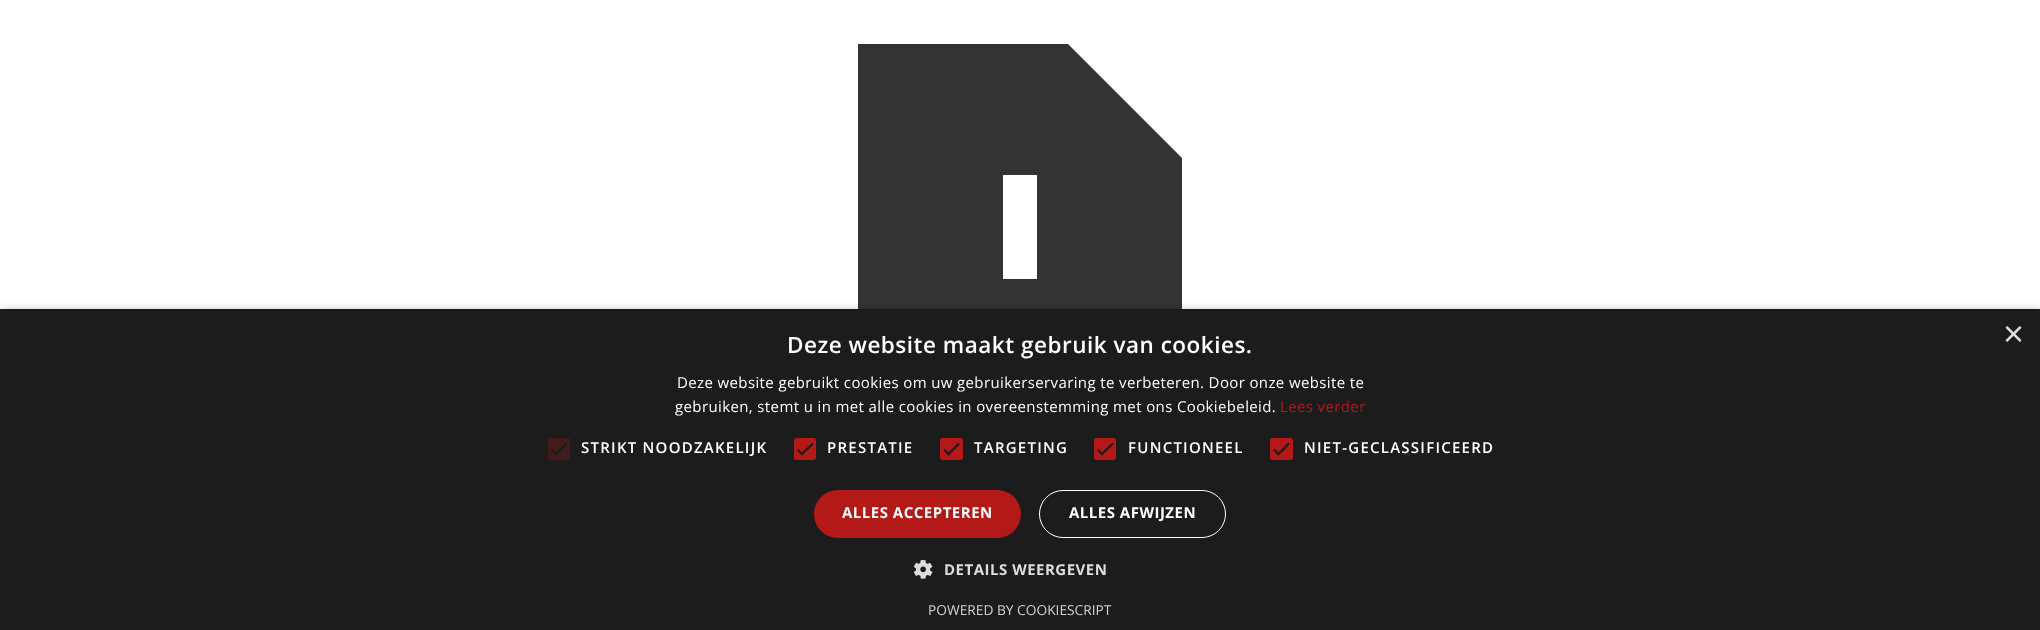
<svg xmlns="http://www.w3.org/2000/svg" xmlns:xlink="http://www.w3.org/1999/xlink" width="2040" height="630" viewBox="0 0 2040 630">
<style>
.cls-1{font:600 22.5px Open Sans;letter-spacing:0.5px;fill:#ffffff}
.cls-2{font:36px Liberation Sans;fill:#dddddd}
.cls-3{font:15px Open Sans;letter-spacing:0.38px;fill:#ffffff}
.cls-4{font:15px Open Sans;letter-spacing:0.38px;fill:#b21917}
.cls-5{font:600 15px Open Sans;letter-spacing:1.25px;fill:#ffffff}
.cls-6{font:bold 15px Open Sans;letter-spacing:0.5px;fill:#ffffff}
.cls-7{font:bold 15px Open Sans;letter-spacing:0.5px;fill:#dddddd}
.cls-8{font:13.75px Open Sans;fill:#d2d2d2}
</style>
<rect width="100%" height="100%" fill="#ffffff"/>
<path fill="#333333" fill-rule="evenodd" d="M858 44H1068L1182 158V452H858ZM1003 175H1037V279H1003ZM1003 313H1037V348H1003Z"/>
<rect fill="#000000" fill-opacity="0.35" filter="blur(5px)" x="1" y="311" width="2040" height="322"/>
<rect fill="#1c1c1c" x="0" y="309" width="2040" height="321"/>
<rect fill="#431b1b" x="548" y="438" width="22" height="22" rx="2.5"/>
<path fill="none" stroke="#1c1c1c" stroke-width="2.3" d="M551.5 449.5L556 454L566.5 443.5"/>
<rect fill="#b21917" stroke="#b21917" stroke-width="3" x="795.5" y="439.5" width="19" height="19" rx="1"/>
<path fill="none" stroke="#1c1c1c" stroke-width="2.3" d="M797.5 449.5L802 454L813 443.5"/>
<rect fill="#b21917" stroke="#b21917" stroke-width="3" x="941.5" y="439.5" width="20" height="19" rx="1"/>
<path fill="none" stroke="#1c1c1c" stroke-width="2.3" d="M944 449.5L948.5 454L959 443.5"/>
<rect fill="#b21917" stroke="#b21917" stroke-width="3" x="1095.5" y="439.5" width="19" height="19" rx="1"/>
<path fill="none" stroke="#1c1c1c" stroke-width="2.3" d="M1097.5 449.5L1102 454L1113 443.5"/>
<rect fill="#b21917" stroke="#b21917" stroke-width="3" x="1271.5" y="439.5" width="20" height="19" rx="1"/>
<path fill="none" stroke="#1c1c1c" stroke-width="2.3" d="M1274 449.5L1278.5 454L1289 443.5"/>
<rect fill="#b21917" x="814" y="490" width="207" height="48" rx="24"/>
<rect fill="none" stroke="#ffffff" x="1039.5" y="490.5" width="186" height="47" rx="23.5"/>
<image xlink:href="image0.png" x="914" y="560" width="19" height="19"/>
<text class="cls-1" x="787" y="353">Deze website maakt gebruik van cookies.</text>
<text class="cls-2" x="2003" y="346">×</text>
<text class="cls-3" x="677" y="388">Deze website gebruikt cookies om uw gebruikerservaring te verbeteren. Door onze website te</text>
<text class="cls-3" x="675" y="412">gebruiken, stemt u in met alle cookies in overeenstemming met ons Cookiebeleid.</text>
<text class="cls-4" x="1280" y="412">Lees verder</text>
<text class="cls-5" x="581" y="453">STRIKT NOODZAKELIJK</text>
<text class="cls-5" x="827" y="453">PRESTATIE</text>
<text class="cls-5" x="974" y="453">TARGETING</text>
<text class="cls-5" x="1128" y="453">FUNCTIONEEL</text>
<text class="cls-5" x="1304" y="453">NIET-GECLASSIFICEERD</text>
<text class="cls-6" x="842" y="518">ALLES ACCEPTEREN</text>
<text class="cls-6" x="1069" y="518">ALLES AFWIJZEN</text>
<text class="cls-7" x="944" y="575">DETAILS WEERGEVEN</text>
<text class="cls-8" x="928" y="615">POWERED BY COOKIESCRIPT</text>
</svg>
